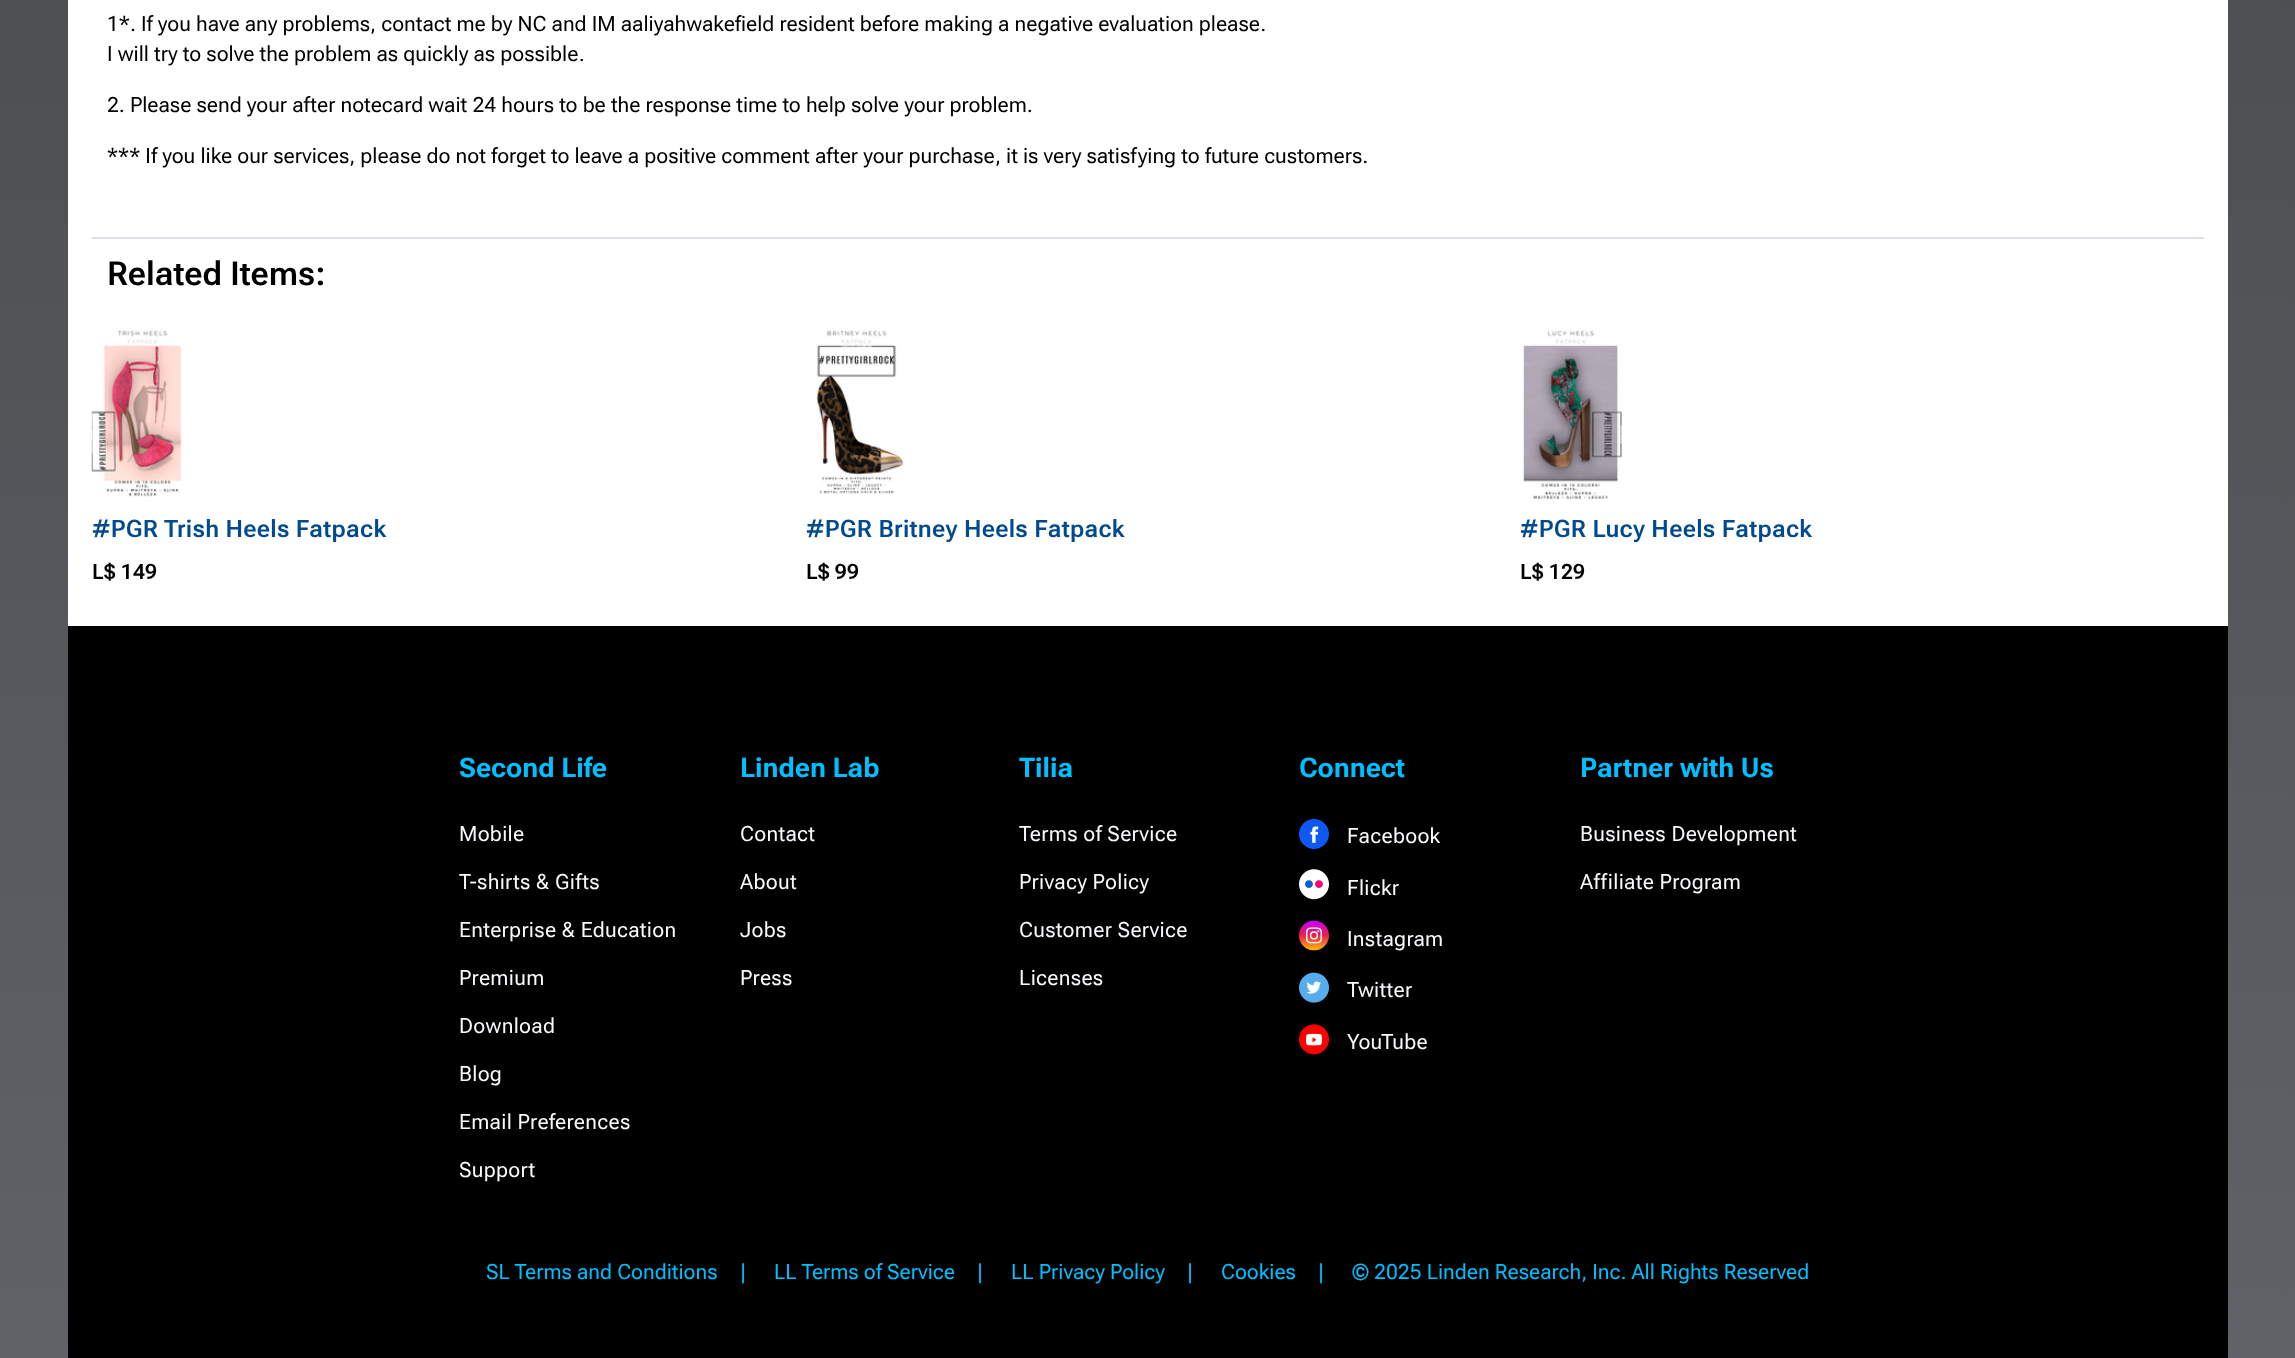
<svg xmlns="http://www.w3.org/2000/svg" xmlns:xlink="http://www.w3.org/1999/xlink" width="2295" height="1358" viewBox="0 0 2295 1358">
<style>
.cls-1{font:21px Roboto Flex;fill:#000000}
.cls-2{font:600 33px Roboto Flex;fill:#000000}
.cls-3{font:600 24px Roboto Flex;letter-spacing:0.3px;fill:#014a8e}
.cls-4{font:600 21px Roboto Flex;letter-spacing:0.25px;fill:#000000}
.cls-5{font:bold 27px Roboto Flex;fill:#00bfff}
.cls-6{font:21px Roboto Flex;letter-spacing:0.3px;fill:#f8f9fc}
.cls-7{font:21px Roboto Flex;fill:#00bfff}
</style>
<defs>
<linearGradient id="g1" gradientUnits="userSpaceOnUse" x1="1147" y1="-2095" x2="1148" y2="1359"><stop offset="0" stop-color="#313234"/><stop offset="1" stop-color="#616267"/></linearGradient>
</defs>
<rect width="100%" height="100%" fill="#ffffff"/>
<rect fill="url(#g1)" x="0" y="0" width="2295" height="1358"/>
<rect fill="#ffffff" x="68" y="0" width="2160" height="626"/>
<rect fill="#dee0e8" x="92" y="237" width="2112" height="2"/>
<image xlink:href="image0.png" x="91" y="330" width="91" height="167"/>
<image xlink:href="image1.png" x="816" y="330" width="88" height="164"/>
<image xlink:href="image2.png" x="1523" y="330" width="99" height="170"/>
<rect fill="#000000" x="68" y="626" width="2160" height="732"/>
<image xlink:href="image3.png" x="1299" y="819" width="30" height="30"/>
<image xlink:href="image4.png" x="1299" y="869" width="30" height="31"/>
<image xlink:href="image5.png" x="1299" y="920" width="30" height="31"/>
<image xlink:href="image6.png" x="1299" y="972" width="30" height="31"/>
<image xlink:href="image7.png" x="1299" y="1024" width="30" height="31"/>
<text class="cls-1"><tspan x="107" y="31">1*. If you have any problems, contact me by NC and IM aaliyahwakefield resident before making a negative evaluation please.</tspan><tspan x="107" y="61">I will try to solve the problem as quickly as possible.</tspan></text>
<text class="cls-1" x="107" y="112">2. Please send your after notecard wait 24 hours to be the response time to help solve your problem.</text>
<text class="cls-1" x="107" y="163">*** If you like our services, please do not forget to leave a positive comment after your purchase, it is very satisfying to future customers.</text>
<text class="cls-2" x="107" y="285">Related Items:</text>
<text class="cls-3" x="92" y="537">#PGR Trish Heels Fatpack</text>
<text class="cls-4" x="92" y="579">L$ 149</text>
<text class="cls-3" x="806" y="537">#PGR Britney Heels Fatpack</text>
<text class="cls-4" x="806" y="579">L$ 99</text>
<text class="cls-3" x="1520" y="537">#PGR Lucy Heels Fatpack</text>
<text class="cls-4" x="1520" y="579">L$ 129</text>
<text class="cls-5" x="459" y="777">Second Life</text>
<text class="cls-6" x="459" y="841">Mobile</text>
<text class="cls-6" x="459" y="889">T-shirts &amp; Gifts</text>
<text class="cls-6" x="459" y="937">Enterprise &amp; Education</text>
<text class="cls-6" x="459" y="985">Premium</text>
<text class="cls-6" x="459" y="1033">Download</text>
<text class="cls-6" x="459" y="1081">Blog</text>
<text class="cls-6" x="459" y="1129">Email Preferences</text>
<text class="cls-6" x="459" y="1177">Support</text>
<text class="cls-5" x="740" y="777">Linden Lab</text>
<text class="cls-6" x="740" y="841">Contact</text>
<text class="cls-6" x="740" y="889">About</text>
<text class="cls-6" x="740" y="937">Jobs</text>
<text class="cls-6" x="740" y="985">Press</text>
<text class="cls-5" x="1019" y="777">Tilia</text>
<text class="cls-6" x="1019" y="841">Terms of Service</text>
<text class="cls-6" x="1019" y="889">Privacy Policy</text>
<text class="cls-6" x="1019" y="937">Customer Service</text>
<text class="cls-6" x="1019" y="985">Licenses</text>
<text class="cls-5" x="1299" y="777">Connect</text>
<text class="cls-6" x="1347" y="843">Facebook</text>
<text class="cls-6" x="1347" y="895">Flickr</text>
<text class="cls-6" x="1347" y="946">Instagram</text>
<text class="cls-6" x="1347" y="997">Twitter</text>
<text class="cls-6" x="1347" y="1049">YouTube</text>
<text class="cls-5" x="1580" y="777">Partner with Us</text>
<text class="cls-6" x="1580" y="841">Business Development</text>
<text class="cls-6" x="1580" y="889">Affiliate Program</text>
<text class="cls-7" x="486" y="1279">SL Terms and Conditions</text>
<text class="cls-7" x="740" y="1279">|</text>
<text class="cls-7" x="774" y="1279">LL Terms of Service</text>
<text class="cls-7" x="977" y="1279">|</text>
<text class="cls-7" x="1011" y="1279">LL Privacy Policy</text>
<text class="cls-7" x="1187" y="1279">|</text>
<text class="cls-7" x="1221" y="1279">Cookies</text>
<text class="cls-7" x="1318" y="1279">|</text>
<text class="cls-7" x="1352" y="1279">© 2025 Linden Research, Inc. All Rights Reserved</text>
</svg>
